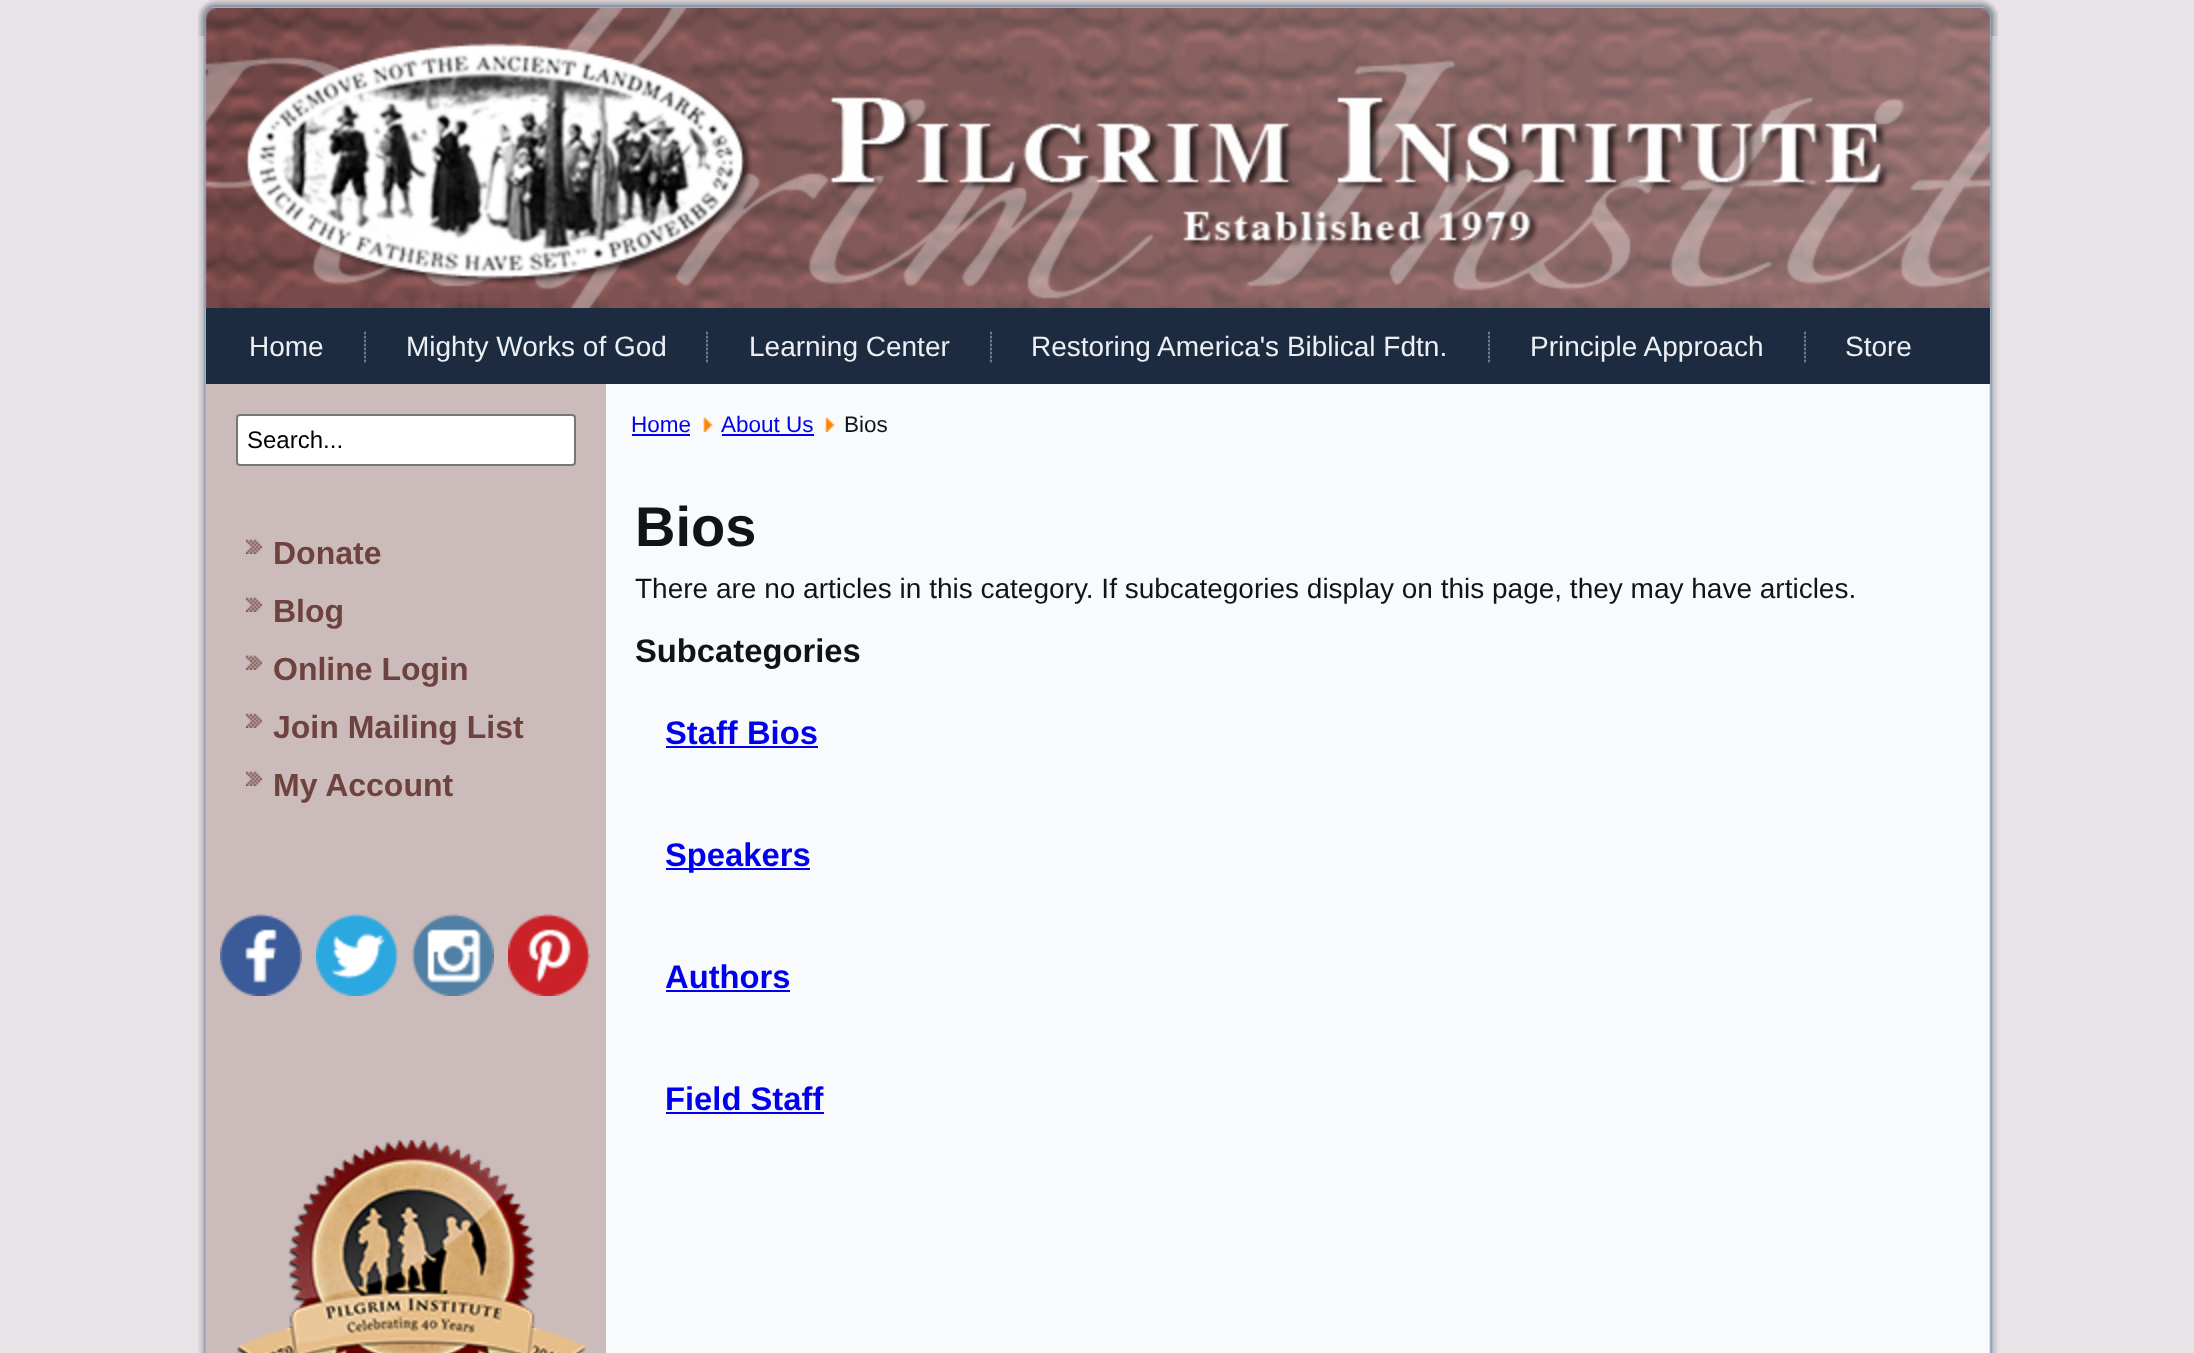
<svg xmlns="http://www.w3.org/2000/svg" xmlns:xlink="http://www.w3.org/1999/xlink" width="2194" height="1353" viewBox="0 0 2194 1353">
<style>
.cls-1{font:28px Liberation Sans;fill:#ecf0f4}
.cls-2{font:24px Liberation Sans;fill:#000000}
.cls-3{font:bold 32px Liberation Sans;fill:#6e423f}
.cls-4{font:22.5px Liberation Sans;fill:#0000ee}
.cls-5{font:22.5px Liberation Sans;fill:#0f1419}
.cls-6{font:bold 56px Liberation Sans;fill:#0f1419}
.cls-7{font:28px Liberation Sans;fill:#0f1419}
.cls-8{font:bold 32.75px Liberation Sans;fill:#0f1419}
.cls-9{font:bold 32.75px Liberation Sans;fill:#0000ee}
</style>
<rect width="100%" height="100%" fill="#e7e3e7"/>
<image xlink:href="image0.png" x="198" y="0" width="1764" height="36"/>
<image xlink:href="image1.png" x="198" y="0" width="1764" height="36"/>
<image xlink:href="image2.png" x="1962" y="0" width="36" height="36"/>
<image xlink:href="image3.png" x="1962" y="0" width="36" height="36"/>
<image xlink:href="image6.png" x="198" y="36" width="1764" height="1317"/>
<image xlink:href="image7.png" x="1962" y="36" width="36" height="1317"/>
<image xlink:href="image5.png" x="206" y="8" width="1784" height="300"/>
<image xlink:href="image4.png" x="205" y="8" width="1786" height="300"/>
<rect fill="#1d2b40" x="206" y="308" width="1784" height="76"/>
<image xlink:href="image8.png" x="364" y="331" width="2" height="32"/>
<image xlink:href="image8.png" x="706" y="331" width="2" height="32"/>
<image xlink:href="image8.png" x="990" y="331" width="2" height="32"/>
<image xlink:href="image8.png" x="1488" y="331" width="2" height="32"/>
<image xlink:href="image8.png" x="1804" y="331" width="2" height="32"/>
<rect fill="#ccbbbb" x="206" y="384" width="400" height="969"/>
<rect fill="#ffffff" stroke="#767676" stroke-width="2" x="237" y="415" width="338" height="50" rx="3"/>
<image xlink:href="image9.png" x="246" y="539" width="16" height="15"/>
<image xlink:href="image9.png" x="246" y="597" width="16" height="15"/>
<image xlink:href="image9.png" x="246" y="655" width="16" height="15"/>
<image xlink:href="image9.png" x="246" y="713" width="16" height="15"/>
<image xlink:href="image9.png" x="246" y="771" width="16" height="15"/>
<image xlink:href="image10.png" x="220" y="914" width="82" height="82"/>
<image xlink:href="image11.png" x="316" y="914" width="82" height="82"/>
<image xlink:href="image12.png" x="412" y="914" width="82" height="82"/>
<image xlink:href="image13.png" x="508" y="914" width="82" height="82"/>
<image xlink:href="image14.png" x="236" y="1140" width="350" height="213"/>
<rect fill="#0000ee" x="632" y="434" width="58" height="2"/>
<image xlink:href="image15.png" x="703" y="417" width="10" height="15"/>
<rect fill="#0000ee" x="722" y="434" width="92" height="2"/>
<image xlink:href="image15.png" x="825" y="417" width="10" height="15"/>
<rect fill="#0000ee" x="666" y="746" width="152" height="2"/>
<rect fill="#0000ee" x="666" y="868" width="144" height="2"/>
<rect fill="#0000ee" x="666" y="990" width="124" height="2"/>
<rect fill="#0000ee" x="666" y="1112" width="158" height="2"/>
<text class="cls-1" x="249" y="356">Home</text>
<text class="cls-1" x="406" y="356">Mighty Works of God</text>
<text class="cls-1" x="749" y="356">Learning Center</text>
<text class="cls-1" x="1031" y="356">Restoring America's Biblical Fdtn.</text>
<text class="cls-1" x="1530" y="356">Principle Approach</text>
<text class="cls-1" x="1845" y="356">Store</text>
<text class="cls-2" x="247" y="448">Search...</text>
<text class="cls-3"><tspan x="273" y="564">Donate</tspan><tspan x="273" y="622">Blog</tspan><tspan x="273" y="680">Online Login</tspan><tspan x="273" y="738">Join Mailing List</tspan><tspan x="273" y="796">My Account</tspan></text>
<text class="cls-4" x="631" y="432">Home</text>
<text class="cls-4" x="721" y="432">About Us</text>
<text class="cls-5" x="844" y="432">Bios</text>
<text class="cls-6" x="635" y="546">Bios</text>
<text class="cls-7" x="635" y="598">There are no articles in this category. If subcategories display on this page, they may have articles.</text>
<text class="cls-8" x="635" y="662">Subcategories</text>
<text class="cls-9" x="665" y="744">Staff Bios</text>
<text class="cls-9" x="665" y="866">Speakers</text>
<text class="cls-9" x="665" y="988">Authors</text>
<text class="cls-9" x="665" y="1110">Field Staff</text>
</svg>
